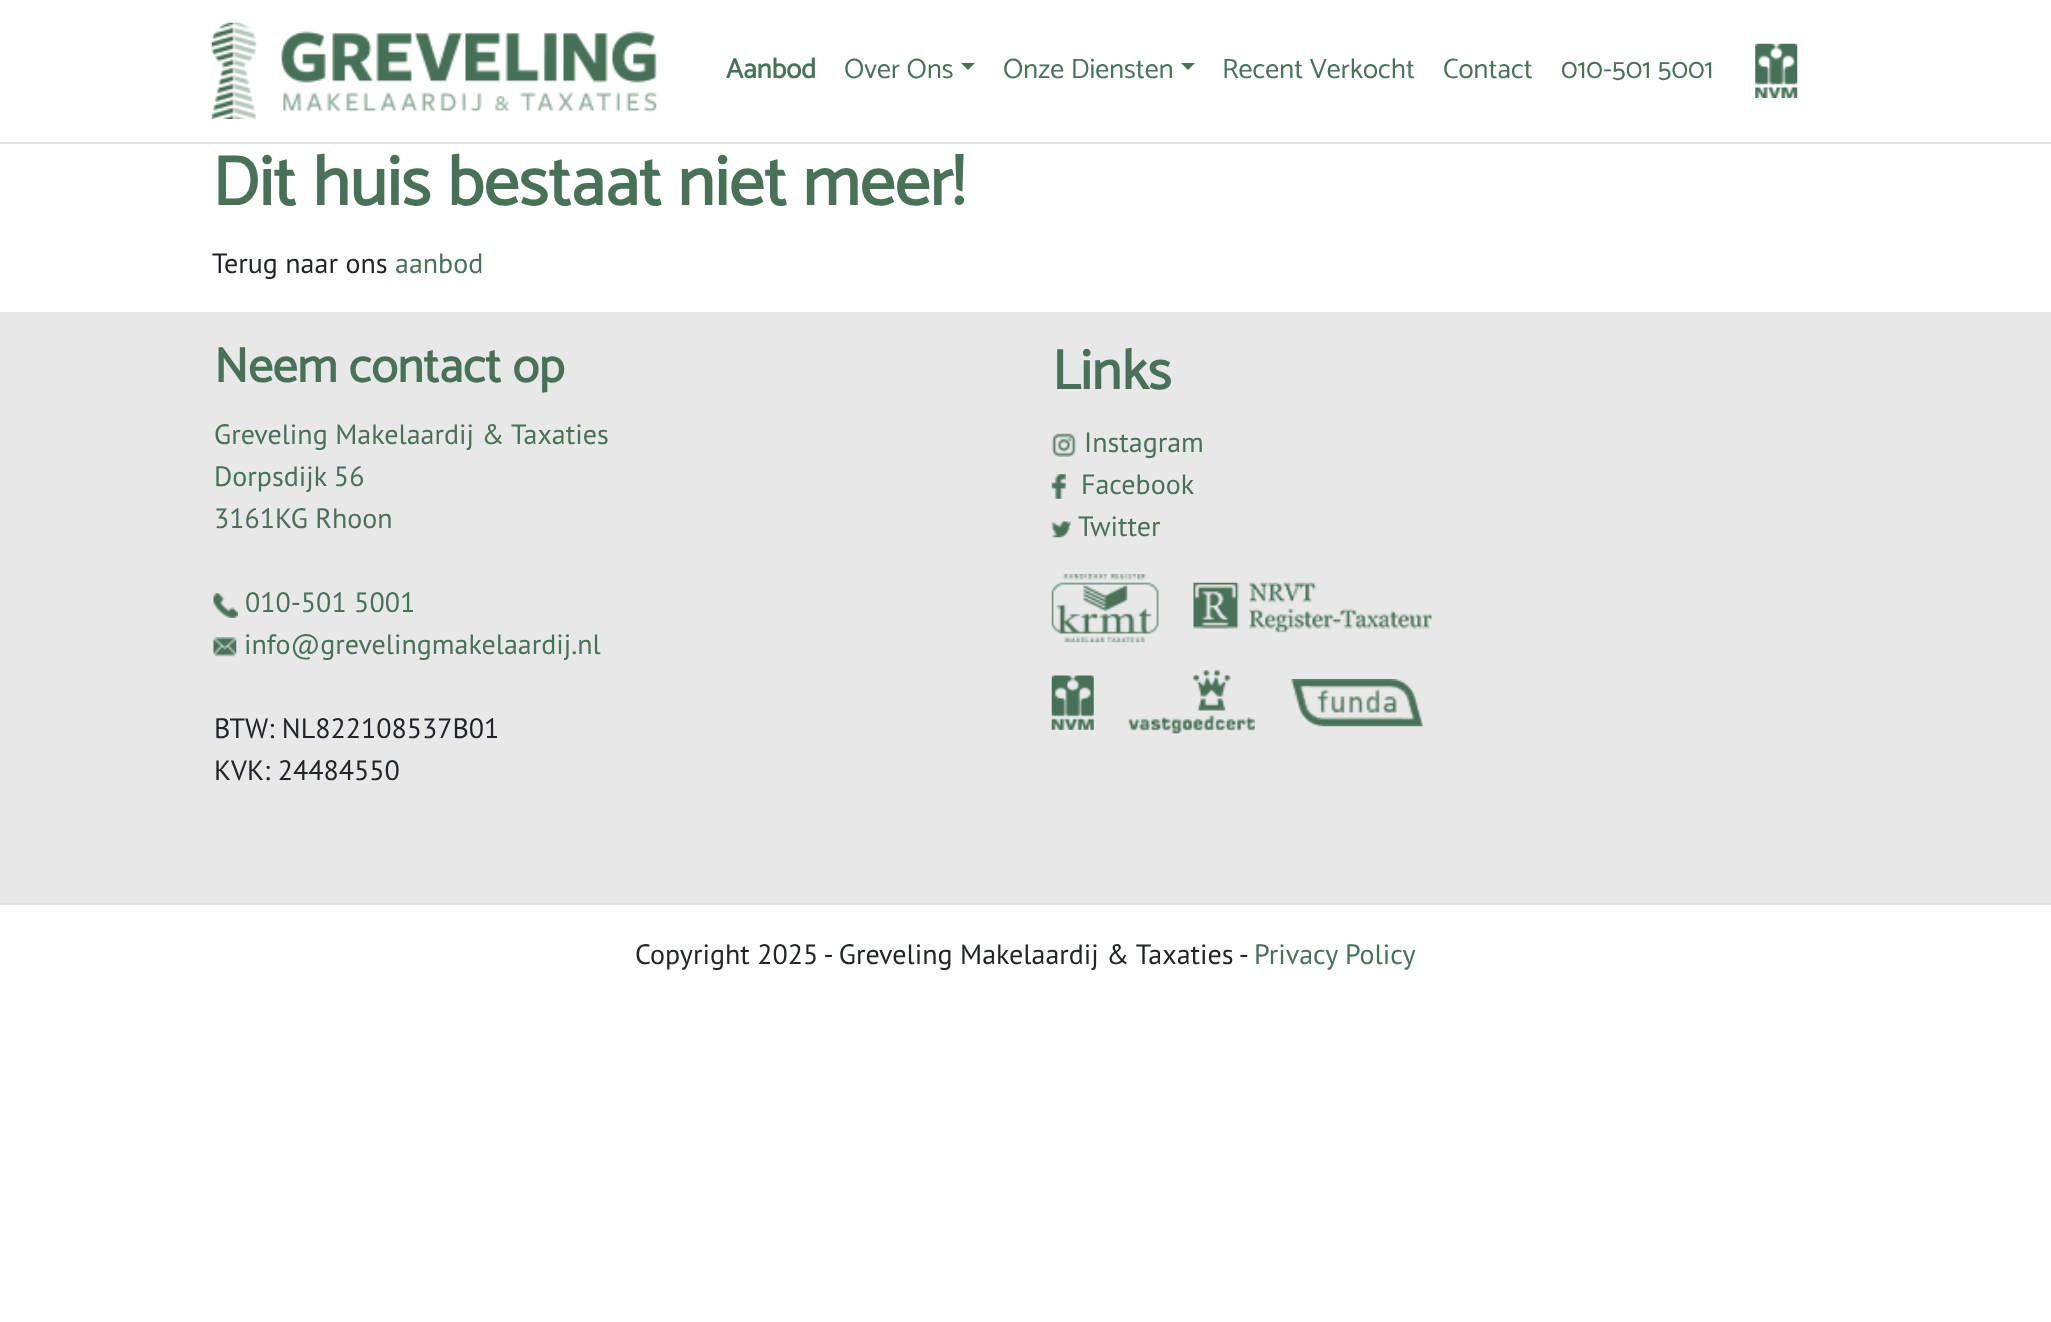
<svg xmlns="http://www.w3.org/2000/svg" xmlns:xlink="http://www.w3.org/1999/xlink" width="2051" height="1322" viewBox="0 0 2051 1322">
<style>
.cls-1{font:bold 28px Catamaran;fill:#487157}
.cls-2{font:100 28px Catamaran;fill:#487157}
.cls-3{font:bold 70px Catamaran;fill:#487157}
.cls-4{font:28px PT Sans;fill:#212529}
.cls-5{font:28px PT Sans;fill:#487157}
.cls-6{font:bold 49px Catamaran;fill:#487157}
.cls-7{font:bold 56px Catamaran;fill:#487157}
</style>
<rect width="100%" height="100%" fill="#ffffff"/>
<rect fill="#dee2e6" x="0" y="142" width="2051" height="2"/>
<image xlink:href="image0.png" x="211" y="22" width="446" height="97"/>
<path fill="#487157" d="M961 63H975L968 70Z"/>
<path fill="#487157" d="M1181 63H1195L1188 70Z"/>
<image xlink:href="image1.png" x="1755" y="43" width="43" height="55"/>
<rect fill="#e8e8e9" x="0" y="312" width="2051" height="591"/>
<image xlink:href="image2.png" x="213" y="593" width="25" height="25"/>
<image xlink:href="image3.png" x="213" y="637" width="24" height="20"/>
<image xlink:href="image4.png" x="1051" y="433" width="26" height="24"/>
<image xlink:href="image5.png" x="1051" y="474" width="15" height="25"/>
<image xlink:href="image6.png" x="1051" y="521" width="20" height="17"/>
<image xlink:href="image7.png" x="1051" y="574" width="108" height="69"/>
<image xlink:href="image8.png" x="1193" y="582" width="239" height="51"/>
<image xlink:href="image9.png" x="1051" y="675" width="43" height="55"/>
<image xlink:href="image10.png" x="1128" y="670" width="127" height="64"/>
<image xlink:href="image11.png" x="1291" y="679" width="132" height="48"/>
<rect fill="#dee2e6" x="0" y="903" width="2051" height="2"/>
<text class="cls-1" x="726" y="78">Aanbod</text>
<text class="cls-2" x="844" y="78">Over Ons</text>
<text class="cls-2" x="1003" y="78">Onze Diensten</text>
<text class="cls-2" x="1222" y="78">Recent Verkocht</text>
<text class="cls-2" x="1443" y="78">Contact</text>
<text class="cls-2" x="1561" y="78">010-501 5001</text>
<text class="cls-3" x="212" y="205">Dit huis bestaat niet meer!</text>
<text class="cls-4" x="212" y="273">Terug naar ons</text>
<text class="cls-5" x="395" y="273">aanbod</text>
<text class="cls-6" x="214" y="382">Neem contact op</text>
<text class="cls-5"><tspan x="214" y="444">Greveling Makelaardij &amp; Taxaties</tspan><tspan x="214" y="486">Dorpsdijk 56</tspan><tspan x="214" y="528">3161KG Rhoon</tspan></text>
<text class="cls-5" x="245" y="612">010-501 5001</text>
<text class="cls-5" x="244" y="654">info@grevelingmakelaardij.nl</text>
<text class="cls-4"><tspan x="214" y="738">BTW: NL822108537B01</tspan><tspan x="214" y="780">KVK: 24484550</tspan></text>
<text class="cls-7" x="1052" y="389">Links</text>
<text class="cls-5" x="1084" y="452">Instagram</text>
<text class="cls-5" x="1081" y="494">Facebook</text>
<text class="cls-5" x="1078" y="536">Twitter</text>
<text class="cls-4" x="635" y="964">Copyright 2025 - Greveling Makelaardij &amp; Taxaties -</text>
<text class="cls-5" x="1254" y="964">Privacy Policy</text>
</svg>
